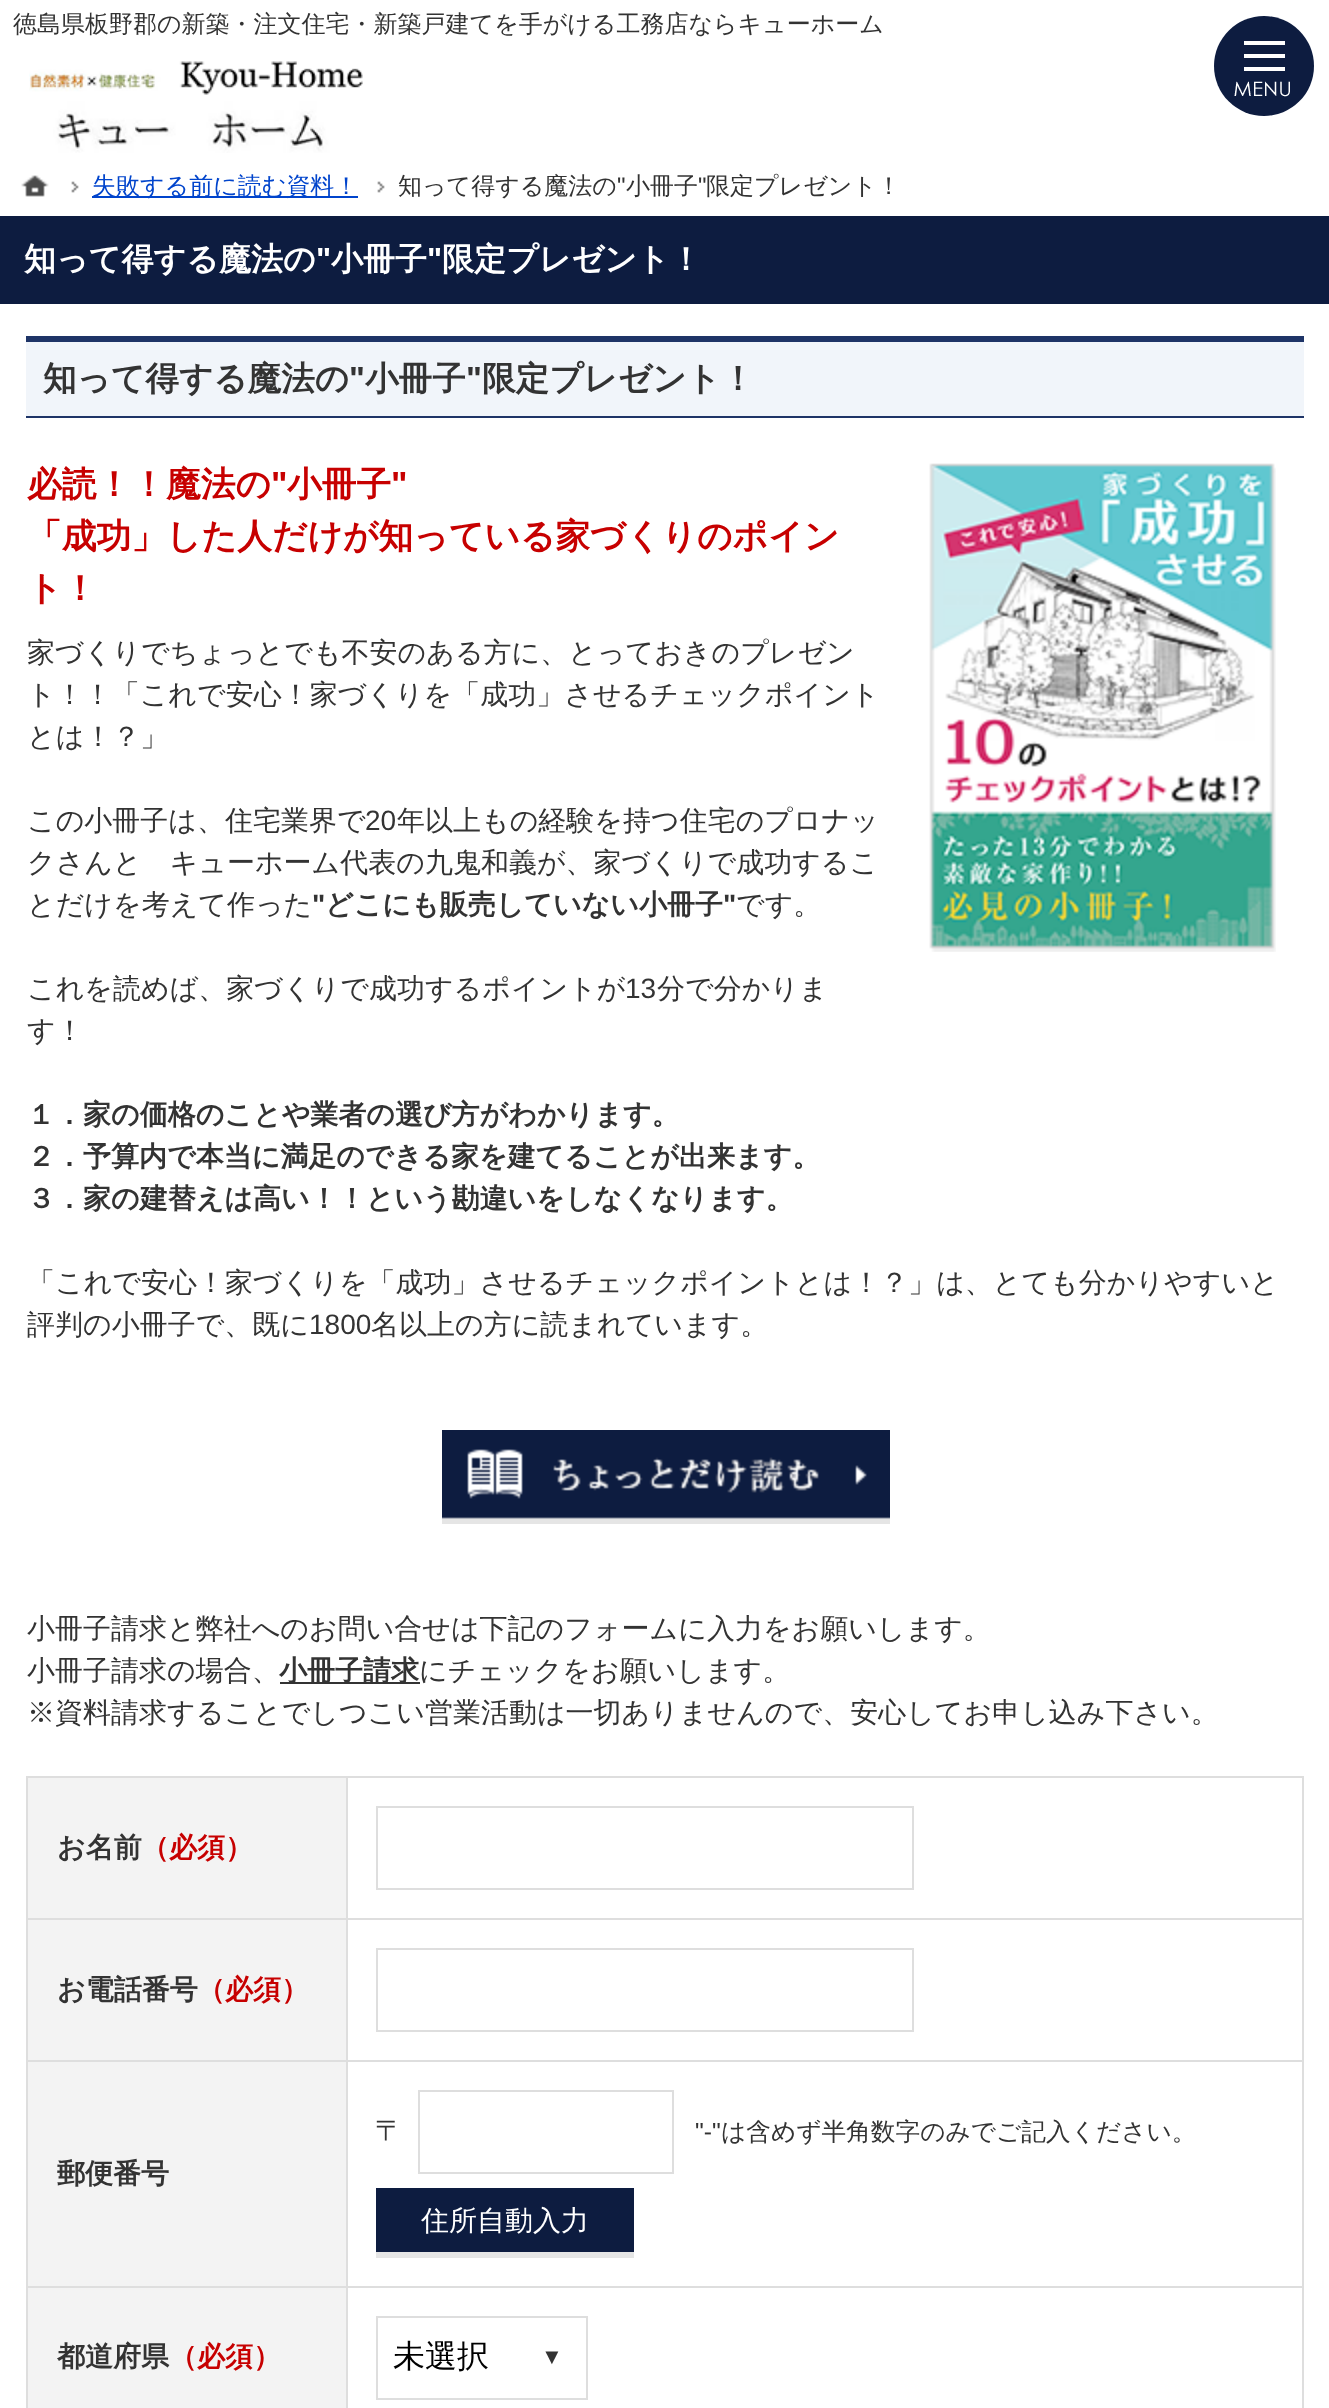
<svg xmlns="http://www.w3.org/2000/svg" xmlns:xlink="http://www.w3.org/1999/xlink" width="1329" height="2408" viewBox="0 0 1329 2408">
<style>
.cls-1{font:500 24px WenQuanYi Zen Hei;fill:#333333}
.cls-2{font:bold 32px WenQuanYi Zen Hei;fill:#ffffff}
.cls-3{font:bold 32px Liberation Sans;fill:#ffffff}
.cls-4{font:500 24px WenQuanYi Zen Hei;fill:#0044cc}
.cls-5{font:24px Liberation Sans;fill:#333333}
.cls-6{font:bold 33.6px WenQuanYi Zen Hei;fill:#333333}
.cls-7{font:bold 33.6px Liberation Sans;fill:#333333}
.cls-8{font:bold 34.75px WenQuanYi Zen Hei;fill:#c70000}
.cls-9{font:bold 34.75px Liberation Sans;fill:#c70000}
.cls-10{font:500 28px WenQuanYi Zen Hei;fill:#333333}
.cls-11{font:28px Liberation Sans;fill:#333333}
.cls-12{font:bold 28px Liberation Sans;fill:#333333}
.cls-13{font:bold 28px WenQuanYi Zen Hei;fill:#333333}
.cls-14{font:bold 28px WenQuanYi Zen Hei;fill:#c70000}
.cls-15{font:24.7px Liberation Sans;fill:#333333}
.cls-16{font:500 24.7px WenQuanYi Zen Hei;fill:#333333}
.cls-17{font:500 28px WenQuanYi Zen Hei;fill:#ffffff}
.cls-18{font:500 32px WenQuanYi Zen Hei;fill:#000000}
.cls-19{font:22px Liberation Sans;fill:#333333}
</style>
<rect width="100%" height="100%" fill="#ffffff"/>
<image xlink:href="image0.png" x="29" y="61" width="334" height="92"/>
<rect fill="#0d1c40" x="0" y="216" width="1329" height="88"/>
<circle fill="#0d1c40" cx="1264" cy="66" r="50"/>
<image xlink:href="image1.png" x="1234" y="41" width="56" height="56"/>
<image xlink:href="image2.png" x="21" y="175" width="28" height="22"/>
<image xlink:href="image3.png" x="71" y="181" width="8" height="12"/>
<rect fill="#0044cc" x="92" y="196" width="266" height="2"/>
<image xlink:href="image3.png" x="377" y="181" width="8" height="12"/>
<rect fill="#f1f5fa" x="26" y="342" width="1278" height="74"/>
<rect fill="#1e3467" x="26" y="336" width="1278" height="6"/>
<rect fill="#1e3467" x="26" y="416" width="1278" height="2"/>
<image xlink:href="image4.png" x="929" y="463" width="347" height="489"/>
<image xlink:href="image5.png" x="442" y="1430" width="448" height="94"/>
<rect fill="#333333" x="280" y="1682" width="140" height="2"/>
<rect fill="#f3f3f3" x="28" y="1778" width="318" height="140"/>
<rect fill="#dedede" x="346" y="1776" width="958" height="2"/>
<rect fill="#dedede" x="346" y="1918" width="958" height="2"/>
<rect fill="#dedede" x="346" y="2060" width="958" height="2"/>
<rect fill="#dedede" x="346" y="2286" width="958" height="2"/>
<rect fill="#dedede" x="346" y="2286" width="2" height="122"/>
<rect fill="#dedede" x="26" y="2286" width="322" height="2"/>
<rect fill="#dedede" x="346" y="2060" width="2" height="228"/>
<rect fill="#dedede" x="26" y="2060" width="322" height="2"/>
<rect fill="#dedede" x="346" y="1918" width="2" height="144"/>
<rect fill="#dedede" x="26" y="1918" width="322" height="2"/>
<rect fill="#dedede" x="346" y="1776" width="2" height="144"/>
<rect fill="#dedede" x="26" y="1776" width="322" height="2"/>
<rect fill="#dedede" x="26" y="2286" width="2" height="122"/>
<rect fill="#dedede" x="26" y="2060" width="2" height="228"/>
<rect fill="#dedede" x="26" y="1918" width="2" height="144"/>
<rect fill="#dedede" x="26" y="1776" width="2" height="144"/>
<rect fill="#dedede" x="1302" y="2286" width="2" height="122"/>
<rect fill="#dedede" x="1302" y="2060" width="2" height="228"/>
<rect fill="#dedede" x="1302" y="1918" width="2" height="144"/>
<rect fill="#dedede" x="1302" y="1776" width="2" height="144"/>
<rect fill="none" stroke="#dedede" stroke-width="2" x="377" y="1807" width="536" height="82"/>
<rect fill="#f3f3f3" x="28" y="1920" width="318" height="140"/>
<rect fill="none" stroke="#dedede" stroke-width="2" x="377" y="1949" width="536" height="82"/>
<rect fill="#f3f3f3" x="28" y="2062" width="318" height="224"/>
<rect fill="none" stroke="#dedede" stroke-width="2" x="419" y="2091" width="254" height="82"/>
<rect fill="#0d1c40" x="376" y="2188" width="258" height="64"/>
<rect fill="#e5e5e5" x="376" y="2252" width="258" height="6"/>
<rect fill="#f3f3f3" x="28" y="2288" width="318" height="120"/>
<rect fill="none" stroke="#dedede" stroke-width="2" x="377" y="2317" width="210" height="82"/>
<text class="cls-1" x="13" y="32">徳島県板野郡の新築・注文住宅・新築戸建てを手がける工務店ならキューホーム</text>
<text class="cls-2" x="24" y="270">知って得する魔法の</text>
<text class="cls-3" x="316" y="270">"</text>
<text class="cls-2" x="331" y="270">小冊子</text>
<text class="cls-3" x="427" y="270">"</text>
<text class="cls-2" x="442" y="270">限定プレゼント！</text>
<text class="cls-4" x="92" y="194">失敗する前に読む資料！</text>
<text class="cls-1" x="398" y="194">知って得する魔法の</text>
<text class="cls-5" x="617" y="194">"</text>
<text class="cls-1" x="626" y="194">小冊子</text>
<text class="cls-5" x="698" y="194">"</text>
<text class="cls-1" x="706" y="194">限定プレゼント！</text>
<text class="cls-6" x="43" y="390">知って得する魔法の</text>
<text class="cls-7" x="349" y="390">"</text>
<text class="cls-6" x="365" y="390">小冊子</text>
<text class="cls-7" x="466" y="390">"</text>
<text class="cls-6" x="482" y="390">限定プレゼント！</text>
<text class="cls-8" x="27" y="496">必読！！魔法の</text>
<text class="cls-9" x="271" y="496">"</text>
<text class="cls-8" x="287" y="496">小冊子</text>
<text class="cls-9" x="391" y="496">"</text>
<text class="cls-8"><tspan x="27" y="548">「成功」した人だけが知っている家づくりのポイン</tspan><tspan x="27" y="600">ト！</tspan></text>
<text class="cls-10"><tspan x="27" y="662">家づくりでちょっとでも不安のある方に、とっておきのプレゼン</tspan><tspan x="27" y="704">ト！！「これで安心！家づくりを「成功」させるチェックポイント</tspan><tspan x="27" y="746">とは！？」</tspan></text>
<text class="cls-10" x="27" y="830">この小冊子は、住宅業界で</text>
<text class="cls-11" x="365" y="830">20</text>
<text class="cls-10" x="397" y="830">年以上もの経験を持つ住宅のプロナッ</text>
<text class="cls-10"><tspan x="27" y="872">クさんと　キューホーム代表の九鬼和義が、家づくりで成功するこ</tspan><tspan x="27" y="914">とだけを考えて作った</tspan></text>
<text class="cls-12" x="312" y="914">"</text>
<text class="cls-13" x="325" y="914">どこにも販売していない小冊子</text>
<text class="cls-12" x="723" y="914">"</text>
<text class="cls-10" x="736" y="914">です。</text>
<text class="cls-10" x="27" y="998">これを読めば、家づくりで成功するポイントが</text>
<text class="cls-11" x="625" y="998">13</text>
<text class="cls-10" x="657" y="998">分で分かりま</text>
<text class="cls-10" x="27" y="1040">す！</text>
<text class="cls-13"><tspan x="27" y="1124">１．家の価格のことや業者の選び方がわかります。</tspan><tspan x="27" y="1166">２．予算内で本当に満足のできる家を建てることが出来ます。</tspan><tspan x="27" y="1208">３．家の建替えは高い！！という勘違いをしなくなります。</tspan></text>
<text class="cls-10"><tspan x="27" y="1292">「これで安心！家づくりを「成功」させるチェックポイントとは！？」は、とても分かりやすいと</tspan><tspan x="27" y="1334">評判の小冊子で、既に</tspan></text>
<text class="cls-11" x="309" y="1334">1800</text>
<text class="cls-10" x="371" y="1334">名以上の方に読まれています。</text>
<text class="cls-10"><tspan x="27" y="1638">小冊子請求と弊社へのお問い合せは下記のフォームに入力をお願いします。</tspan><tspan x="27" y="1680">小冊子請求の場合、</tspan></text>
<text class="cls-13" x="279" y="1680">小冊子請求</text>
<text class="cls-10" x="419" y="1680">にチェックをお願いします。</text>
<text class="cls-10" x="27" y="1722">※資料請求することでしつこい営業活動は一切ありませんので、安心してお申し込み下さい。</text>
<text class="cls-13" x="57" y="1857">お名前</text>
<text class="cls-14" x="141" y="1857">（必須）</text>
<text class="cls-13" x="57" y="1999">お電話番号</text>
<text class="cls-14" x="197" y="1999">（必須）</text>
<text class="cls-13" x="57" y="2183">郵便番号</text>
<text class="cls-10" x="375" y="2140">〒</text>
<text class="cls-15" x="695" y="2140">"-"</text>
<text class="cls-16" x="721" y="2140">は含めず半角数字のみでご記入ください。</text>
<text class="cls-17" x="421" y="2230">住所自動入力</text>
<text class="cls-13" x="57" y="2366">都道府県</text>
<text class="cls-14" x="169" y="2366">（必須）</text>
<text class="cls-18" x="393" y="2367">未選択</text>
<text class="cls-19" x="541" y="2364">▼</text>
</svg>
